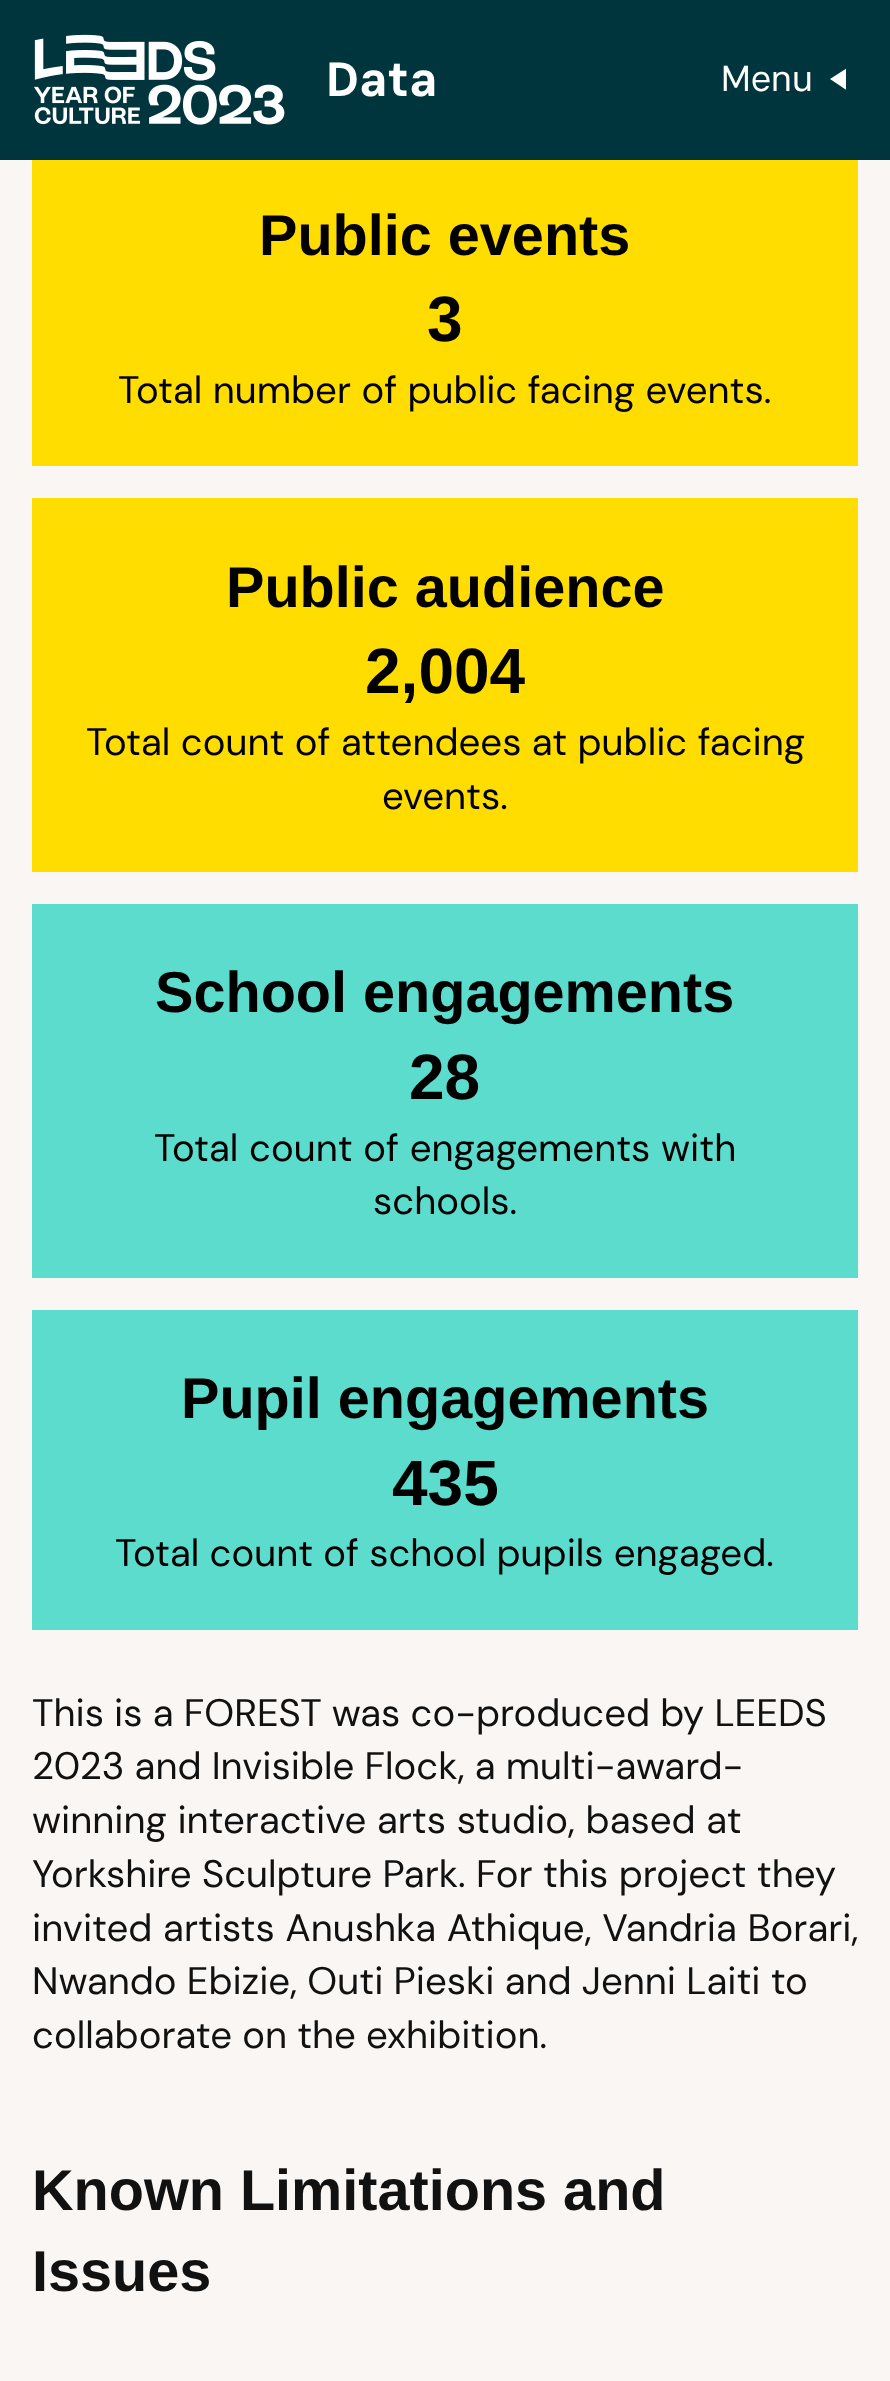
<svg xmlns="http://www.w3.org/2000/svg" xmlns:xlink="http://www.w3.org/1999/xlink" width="890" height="2381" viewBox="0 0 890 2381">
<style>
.cls-1{font:bold 48px DM Sans;fill:#ffffff}
.cls-2{font:36px 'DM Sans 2';fill:#ffffff}
.cls-3{font:bold 57.6px Liberation Sans;fill:#000000}
.cls-4{font:bold 64px Liberation Sans;fill:#000000}
.cls-5{font:38.4px DM Sans;fill:#000000}
.cls-6{font:38.4px DM Sans;fill:#111111}
.cls-7{font:bold 57.6px Liberation Sans;fill:#111111}
</style>
<defs>
<clipPath id="clip1"><rect x="830" y="68" width="16" height="24"/></clipPath>
</defs>
<rect width="100%" height="100%" fill="#f9f6f3"/>
<rect fill="#00353d" x="0" y="0" width="890" height="160"/>
<image xlink:href="image0.png" x="34" y="34" width="251" height="91"/>
<g clip-path="url(#clip1)">
<path fill="#ffffff" d="M830 79L847 68V90.5Z"/>
</g>
<rect fill="#ffdd00" x="32" y="160" width="826" height="306"/>
<rect fill="#ffdd00" x="32" y="498" width="826" height="374"/>
<rect fill="#5bdccd" x="32" y="904" width="826" height="374"/>
<rect fill="#5bdccd" x="32" y="1310" width="826" height="320"/>
<text class="cls-1" x="326" y="96">Data</text>
<text class="cls-2" x="721" y="91">Menu</text>
<text class="cls-3" x="259" y="255">Public events</text>
<text class="cls-4" x="427" y="341">3</text>
<text class="cls-5" x="118" y="403" word-spacing="0.25">Total number of public facing events.</text>
<text class="cls-3" x="226" y="607">Public audience</text>
<text class="cls-4" x="365" y="693">2,004</text>
<text class="cls-5" x="86" y="755" word-spacing="0.25">Total count of attendees at public facing</text>
<text class="cls-5" x="382" y="809">events.</text>
<text class="cls-3" x="155" y="1012">School engagements</text>
<text class="cls-4" x="409" y="1099">28</text>
<text class="cls-5" x="154" y="1161" word-spacing="0.5">Total count of engagements with</text>
<text class="cls-5" x="373" y="1214">schools.</text>
<text class="cls-3" x="181" y="1418">Pupil engagements</text>
<text class="cls-4" x="392" y="1505">435</text>
<text class="cls-5" x="115" y="1566">Total count of school pupils engaged.</text>
<text class="cls-6"><tspan x="32" y="1726">This is a FOREST was co-produced by LEEDS</tspan><tspan x="32" y="1779">2023 and Invisible Flock, a multi-award-</tspan><tspan x="32" y="1833" word-spacing="0.5">winning interactive arts studio, based at</tspan><tspan x="32" y="1887" word-spacing="0.25">Yorkshire Sculpture Park. For this project they</tspan><tspan x="32" y="1941" word-spacing="0.5">invited artists Anushka Athique, Vandria Borari,</tspan><tspan x="32" y="1994">Nwando Ebizie, Outi Pieski and Jenni Laiti to</tspan><tspan x="32" y="2048">collaborate on the exhibition.</tspan></text>
<text class="cls-7"><tspan x="32" y="2210">Known Limitations and</tspan><tspan x="32" y="2291">Issues</tspan></text>
</svg>
